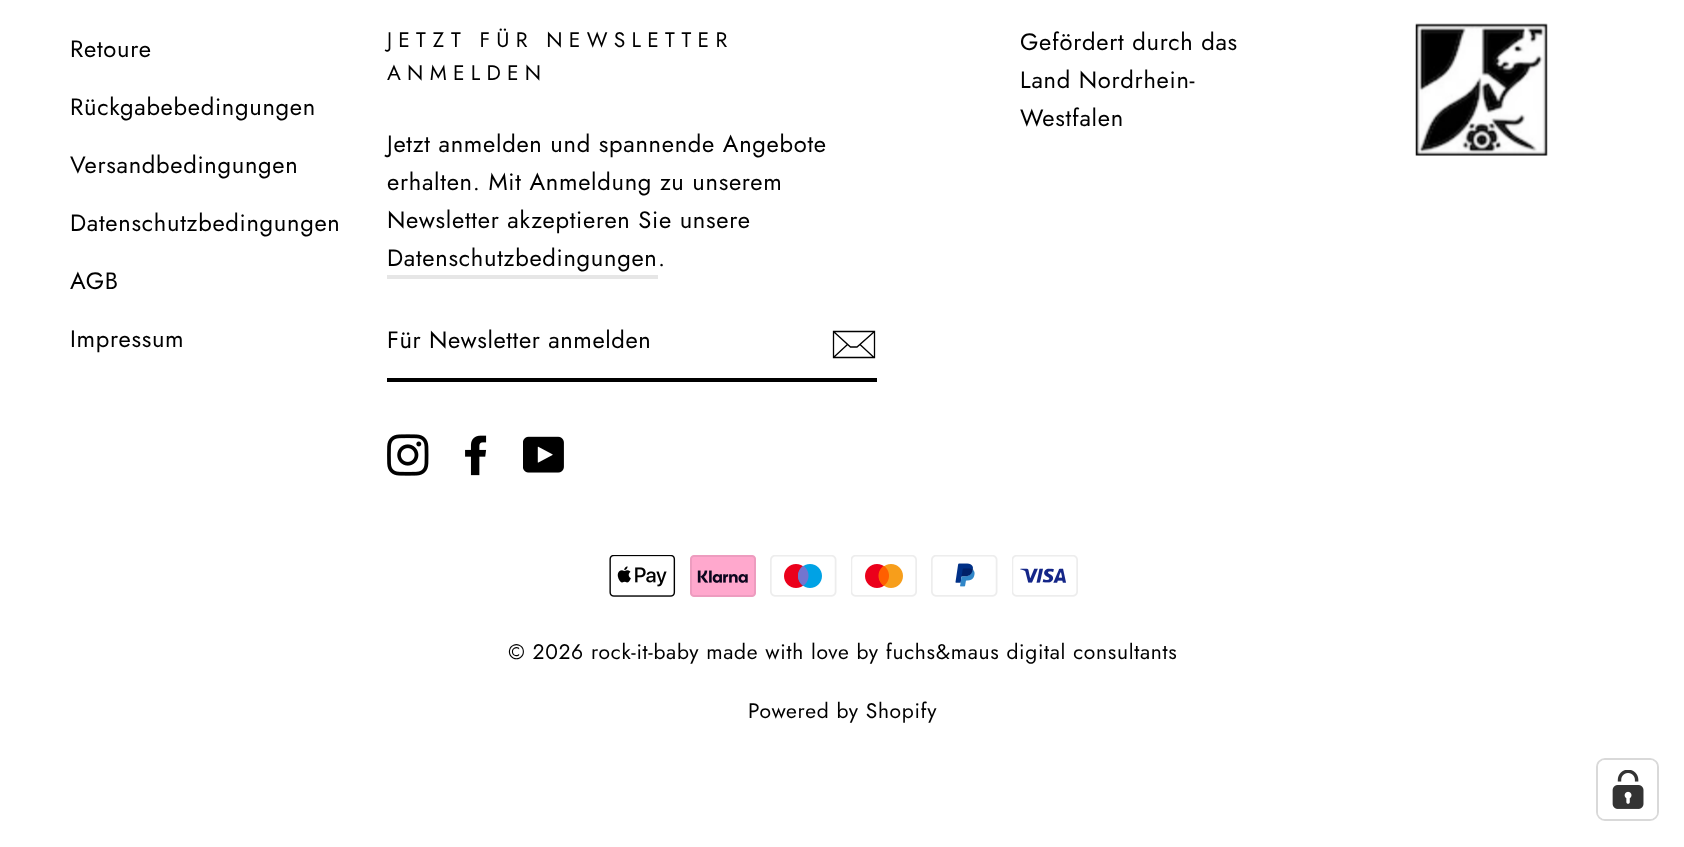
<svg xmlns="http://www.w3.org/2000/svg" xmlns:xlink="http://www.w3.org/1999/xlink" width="1684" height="847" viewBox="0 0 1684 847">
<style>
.cls-1{font:23.75px Jost;letter-spacing:0.7px;fill:#000000}
.cls-2{font:21px Jost;letter-spacing:6.25px;fill:#000000}
.cls-3{font:23.75px Jost;letter-spacing:0.6px;fill:#000000}
.cls-4{font:21px Jost;letter-spacing:0.7px;fill:#000000}
</style>
<rect width="100%" height="100%" fill="#ffffff"/>
<rect fill="#e6e6e6" x="387" y="275" width="271" height="4"/>
<rect fill="#000000" x="387" y="378" width="490" height="4"/>
<path fill="none" stroke="#000000" stroke-width="1.3" d="M874.5 357.5H833.5V331.5H874.5ZM833.5 331.5L850.5 347H857L874.5 331.5M847.5 344.5L834 357M874 357.5L860 344.5"/>
<image xlink:href="image0.png" x="387" y="434" width="42" height="42"/>
<image xlink:href="image1.png" x="465" y="435" width="22" height="41"/>
<image xlink:href="image2.png" x="523" y="436" width="41" height="37"/>
<image xlink:href="image3.png" x="1415" y="23" width="133" height="133"/>
<image xlink:href="image4.png" x="609" y="555" width="67" height="42"/>
<image xlink:href="image5.png" x="690" y="555" width="66" height="42"/>
<image xlink:href="image6.png" x="770" y="555" width="67" height="42"/>
<image xlink:href="image7.png" x="851" y="555" width="66" height="42"/>
<image xlink:href="image8.png" x="931" y="555" width="67" height="42"/>
<image xlink:href="image9.png" x="1012" y="555" width="66" height="42"/>
<rect fill="none" stroke="#d9d9d9" stroke-width="2" x="1597" y="759" width="61" height="61" rx="8"/>
<rect fill="#ffffff" x="1598" y="760" width="59" height="59" rx="7"/>
<image xlink:href="image10.png" x="1612" y="770" width="32" height="39"/>
<text class="cls-1" x="70" y="57">Retoure</text>
<text class="cls-1" x="70" y="115">Rückgabebedingungen</text>
<text class="cls-1" x="70" y="173">Versandbedingungen</text>
<text class="cls-1" x="70" y="231">Datenschutzbedingungen</text>
<text class="cls-1" x="70" y="289">AGB</text>
<text class="cls-1" x="70" y="347">Impressum</text>
<text class="cls-2"><tspan x="387" y="47">JETZT FÜR NEWSLETTER</tspan><tspan x="387" y="80">ANMELDEN</tspan></text>
<text class="cls-1"><tspan x="387" y="152">Jetzt anmelden und spannende Angebote</tspan><tspan x="387" y="190">erhalten. Mit Anmeldung zu unserem</tspan><tspan x="387" y="228">Newsletter akzeptieren Sie unsere</tspan><tspan x="387" y="266">Datenschutzbedingungen</tspan></text>
<text class="cls-1" x="658" y="266">.</text>
<text class="cls-3" x="387" y="348">Für Newsletter anmelden</text>
<text class="cls-1"><tspan x="1020" y="50">Gefördert durch das</tspan><tspan x="1020" y="88">Land Nordrhein-</tspan><tspan x="1020" y="126">Westfalen</tspan></text>
<text class="cls-4" x="508" y="659">© 2026 rock-it-baby made with love by fuchs&amp;maus digital consultants</text>
<text class="cls-4" x="748" y="718">Powered by Shopify</text>
</svg>
